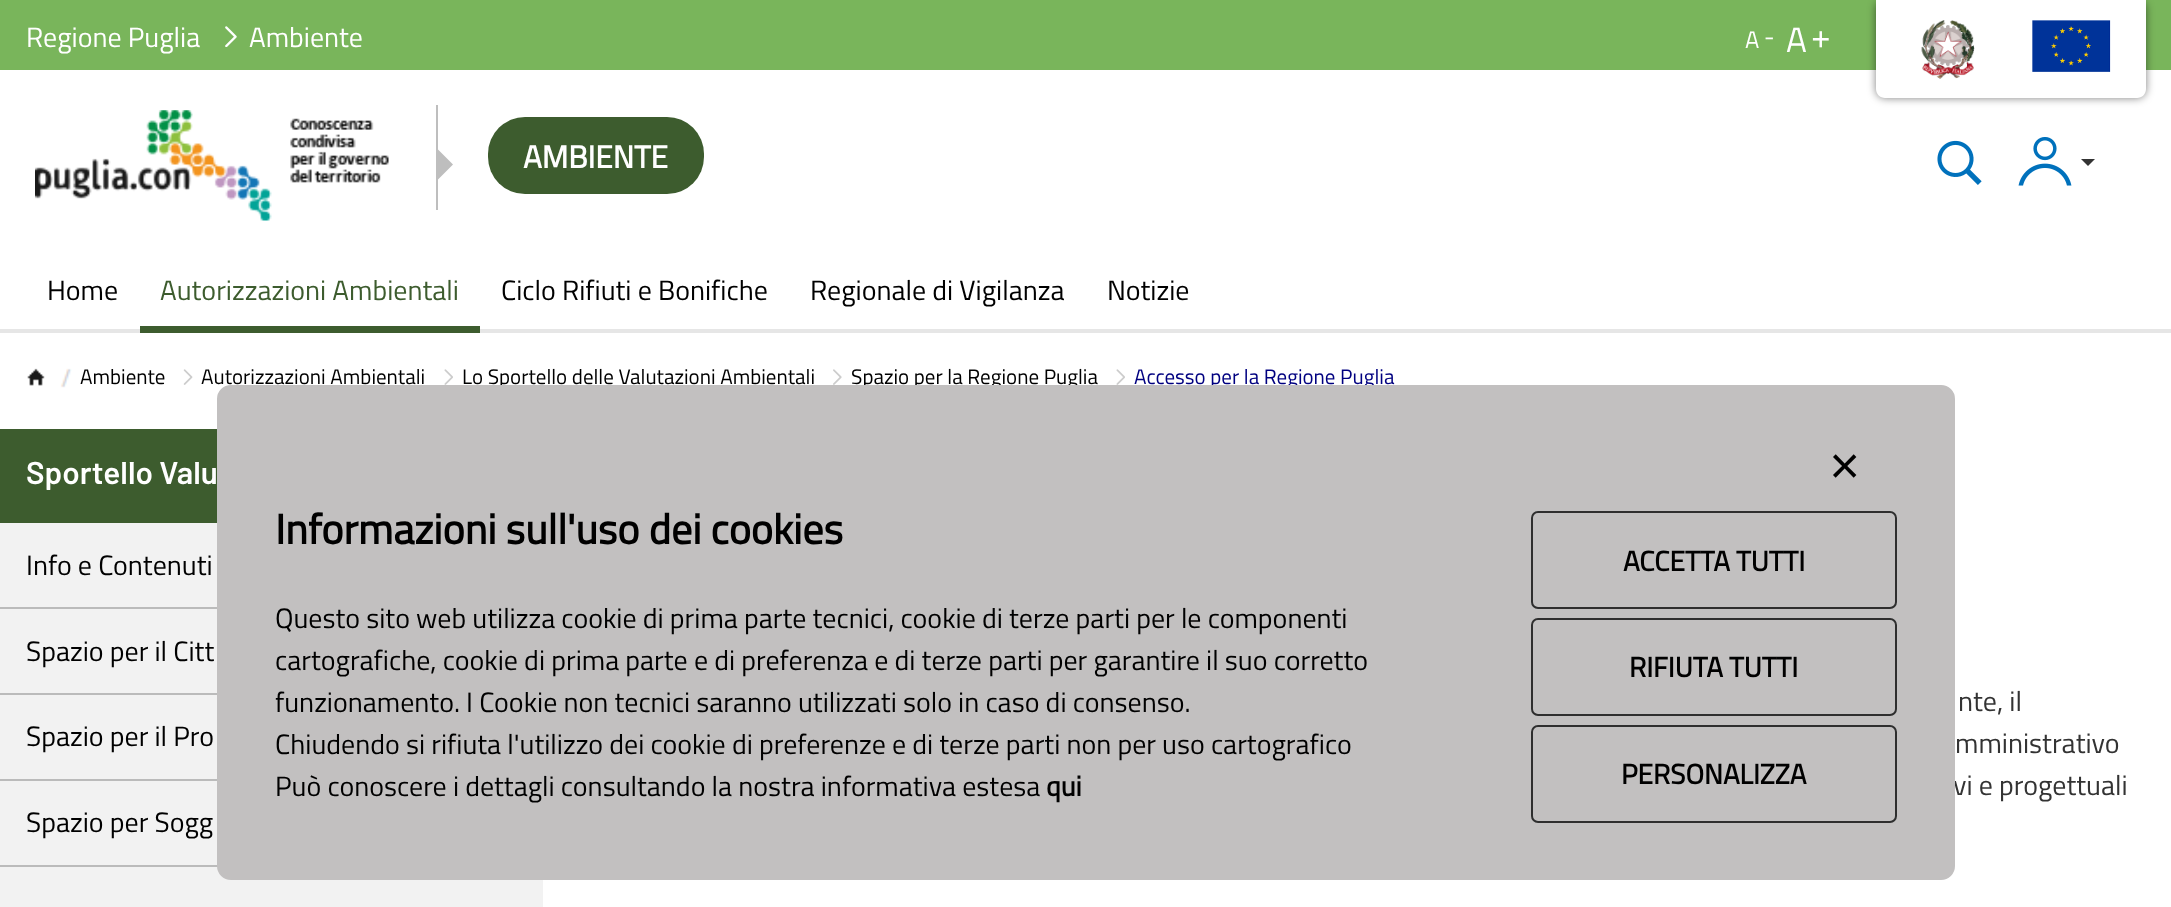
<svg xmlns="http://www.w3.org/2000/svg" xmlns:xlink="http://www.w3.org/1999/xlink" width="2171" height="907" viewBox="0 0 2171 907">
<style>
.cls-1{font:28px Titillium Web;fill:#ffffff}
.cls-2{font:24px Titillium Web;fill:#ffffff}
.cls-3{font:35px Titillium Web;fill:#ffffff}
.cls-4{font:bold 31.5px Titillium Web;fill:#ffffff}
.cls-5{font:28px Titillium Web;fill:#000000}
.cls-6{font:28px Titillium Web;fill:#3d5c2e}
.cls-7{font:21px Titillium Web;fill:#000000}
.cls-8{font:21px Titillium Web;fill:#000080}
.cls-9{font:600 31.5px Barlow;fill:#ffffff}
.cls-10{font:28px Titillium Web;fill:#333333}
.cls-11{font:56px Titillium Web;fill:#000000}
.cls-12{font:bold 42px Titillium Web;fill:#000000}
.cls-13{font:bold 28px Titillium Web;fill:#000000}
</style>
<rect width="100%" height="100%" fill="#ffffff"/>
<rect fill="#79b55b" x="0" y="0" width="2171" height="70"/>
<image xlink:href="image0.png" x="225" y="26" width="12" height="21"/>
<rect fill="#000000" fill-opacity="0.5" filter="blur(4.5px)" x="1876" y="0" width="270" height="98" rx="9"/>
<path fill="#ffffff" d="M1876 0H2146V89C2146 94 2142 98 2137 98H1885C1880 98 1876 94 1876 89Z"/>
<image xlink:href="image1.png" x="1921" y="20" width="54" height="59"/>
<image xlink:href="image2.png" x="2032" y="20" width="79" height="52"/>
<image xlink:href="image3.png" x="35" y="110" width="354" height="111"/>
<rect fill="#bebebe" x="436" y="105" width="2" height="105"/>
<path fill="#bebebe" d="M437.5 180V149L453 164.5Z"/>
<rect fill="#3d5c2e" x="488" y="117" width="216" height="77" rx="37"/>
<image xlink:href="image4.png" x="1937" y="140" width="45" height="45"/>
<image xlink:href="image5.png" x="2018" y="137" width="54" height="49"/>
<path fill="#333333" d="M2081 159H2095L2088 166Z"/>
<rect fill="#e6e6e6" x="0" y="329" width="2171" height="4"/>
<rect fill="#3d5c2e" x="140" y="326" width="340" height="7"/>
<image xlink:href="image6.png" x="27" y="368" width="45" height="20"/>
<image xlink:href="image7.png" x="183" y="369" width="10" height="16"/>
<image xlink:href="image8.png" x="444" y="369" width="9" height="16"/>
<image xlink:href="image9.png" x="833" y="369" width="9" height="16"/>
<image xlink:href="image8.png" x="1116" y="369" width="9" height="16"/>
<rect fill="#f2f2f2" x="0" y="523" width="543" height="384"/>
<rect fill="#3d5c2e" x="0" y="429" width="217" height="94"/>
<rect fill="#bbbbbb" x="0" y="607" width="217" height="2"/>
<rect fill="#bbbbbb" x="0" y="693" width="217" height="2"/>
<rect fill="#bbbbbb" x="0" y="779" width="217" height="2"/>
<rect fill="#bbbbbb" x="0" y="865" width="218" height="2"/>
<text class="cls-1" x="26" y="47">Regione Puglia</text>
<text class="cls-1" x="249" y="47">Ambiente</text>
<text class="cls-2" x="1745" y="48">A</text>
<text class="cls-2" x="1764" y="45">-</text>
<text class="cls-3" x="1786" y="52">A</text>
<text class="cls-3" x="1811" y="48">+</text>
<text class="cls-4" x="523" y="168">AMBIENTE</text>
<text class="cls-5" x="47" y="300">Home</text>
<text class="cls-6" x="160" y="300">Autorizzazioni Ambientali</text>
<text class="cls-5" x="501" y="300">Ciclo Rifiuti e Bonifiche</text>
<text class="cls-5" x="810" y="300">Regionale di Vigilanza</text>
<text class="cls-5" x="1107" y="300">Notizie</text>
<text class="cls-7" x="80" y="384">Ambiente</text>
<text class="cls-7" x="201" y="384">Autorizzazioni Ambientali</text>
<text class="cls-7" x="462" y="384">Lo Sportello delle Valutazioni Ambientali</text>
<text class="cls-7" x="851" y="384">Spazio per la Regione Puglia</text>
<text class="cls-8" x="1134" y="384">Accesso per la Regione Puglia</text>
<text class="cls-9" x="26" y="484">Sportello Valu</text>
<text class="cls-5" x="26" y="575">Info e Contenuti</text>
<text class="cls-5" x="26" y="661">Spazio per il Citt</text>
<text class="cls-5" x="26" y="746">Spazio per il Pro</text>
<text class="cls-5" x="26" y="832">Spazio per Sogg</text>
<text class="cls-10" x="1958" y="711">nte, il</text>
<text class="cls-10" x="1955" y="753">mministrativo</text>
<text class="cls-10" x="1953" y="795">vi e progettuali</text>
<rect fill="#c2c0c0" stroke="#c2c0c0" stroke-width="2" x="218" y="386" width="1736" height="493" rx="13"/>
<text class="cls-11" x="1829" y="480">×</text>
<text class="cls-12" x="275" y="544">Informazioni sull'uso dei cookies</text>
<text class="cls-5"><tspan x="275" y="628">Questo sito web utilizza cookie di prima parte tecnici, cookie di terze parti per le componenti</tspan><tspan x="275" y="670">cartografiche, cookie di prima parte e di preferenza e di terze parti per garantire il suo corretto</tspan><tspan x="275" y="712">funzionamento. I Cookie non tecnici saranno utilizzati solo in caso di consenso.</tspan><tspan x="275" y="754">Chiudendo si rifiuta l'utilizzo dei cookie di preferenze e di terze parti non per uso cartografico</tspan><tspan x="275" y="796">Può conoscere i dettagli consultando la nostra informativa estesa</tspan></text>
<text class="cls-13" x="1046" y="796">qui</text>
<rect fill="none" stroke="#2e2e2e" stroke-width="2" x="1532" y="512" width="364" height="96" rx="6"/>
<text class="cls-13" x="1623" y="571">ACCETTA TUTTI</text>
<rect fill="none" stroke="#2e2e2e" stroke-width="2" x="1532" y="619" width="364" height="96" rx="6"/>
<text class="cls-13" x="1629" y="677">RIFIUTA TUTTI</text>
<rect fill="none" stroke="#2e2e2e" stroke-width="2" x="1532" y="726" width="364" height="96" rx="6"/>
<text class="cls-13" x="1621" y="784">PERSONALIZZA</text>
</svg>
